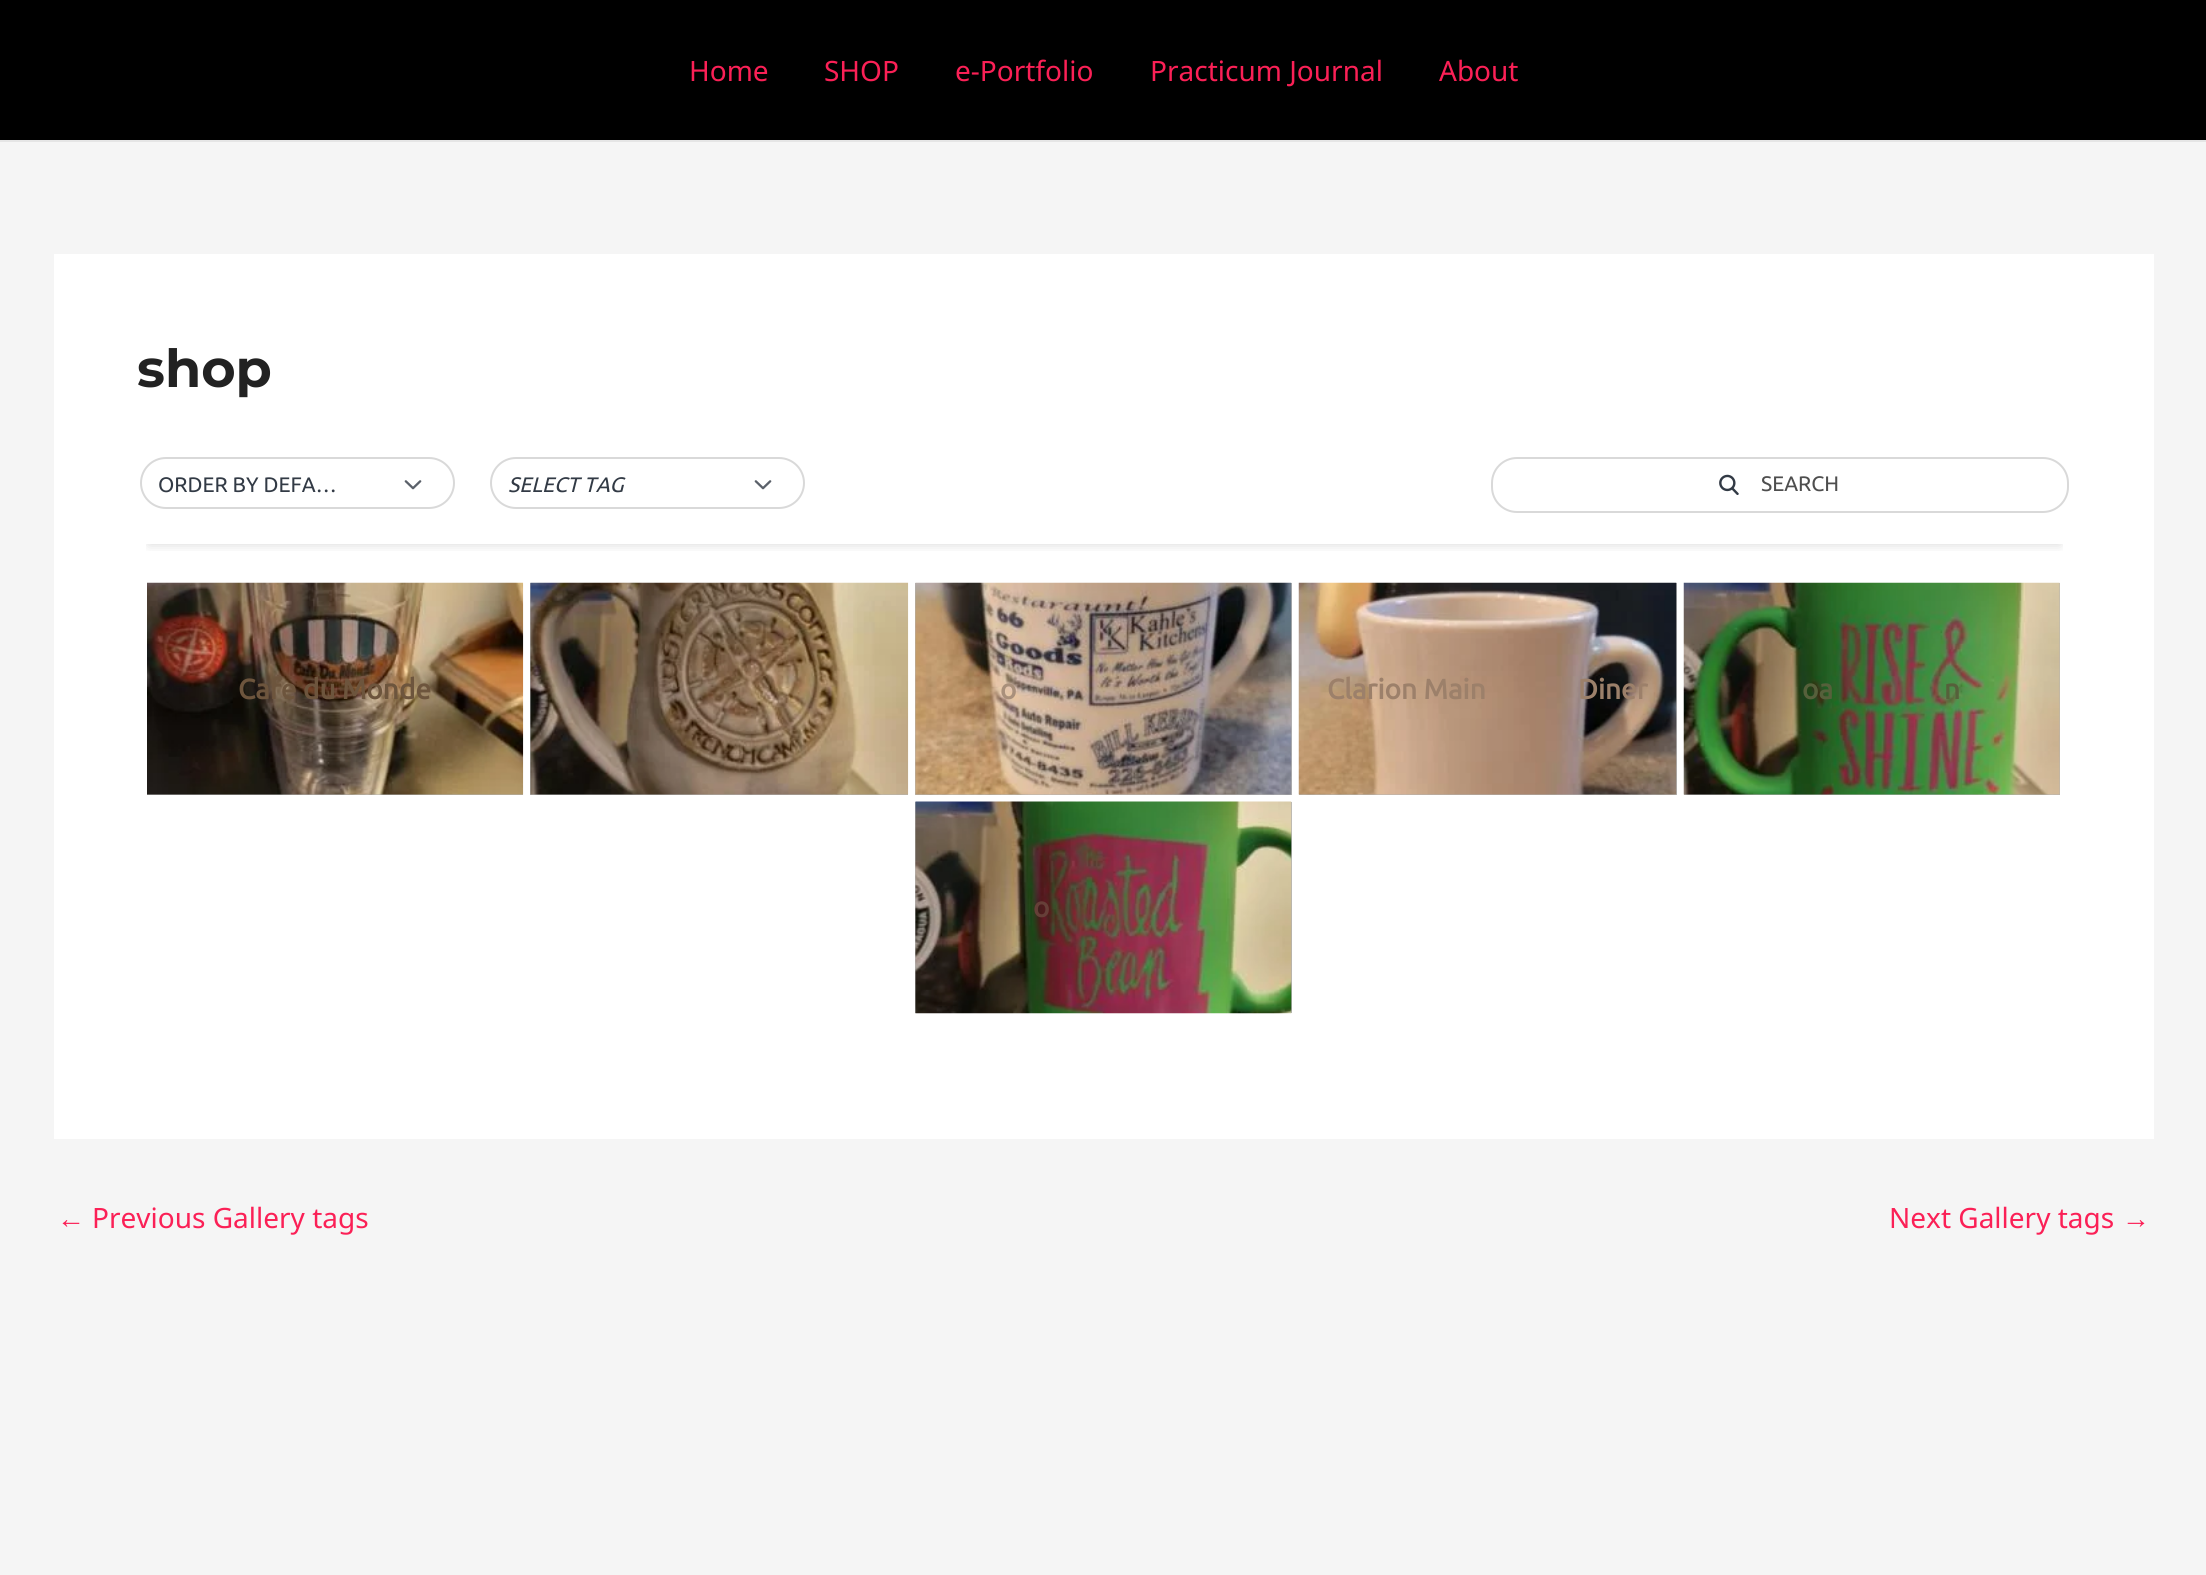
import math
import cairo

surface = cairo.ImageSurface(cairo.FORMAT_RGB24, 2206, 1575)
cr = cairo.Context(surface)
options = cairo.FontOptions()
options.set_hint_metrics(cairo.HINT_METRICS_OFF)
options.set_hint_style(cairo.HINT_STYLE_NONE)
cr.set_font_options(options)
cr.set_miter_limit(4)


def rgb(code):
    cr.set_source_rgb(*(v / 255 for v in bytes.fromhex(code[-6:])))


def rrect(x, y, w, h, r):
    cr.new_sub_path()
    for i, (u, v) in enumerate([(x + w - r, y + h - r), (x + r, y + h - r), (x + r, y + r), (x + w - r, y + r)]):
        cr.arc(u, v, r, i * math.pi / 2, (i + 1) * math.pi / 2)
    cr.close_path()


def soft_shadow(x, y, w, h, r, blur, alpha):
    cr.push_group_with_content(cairo.CONTENT_ALPHA)
    cr.set_operator(cairo.OPERATOR_SOURCE)
    for i in range(15, -16, -2):
        e = blur * i / 6
        if min(w, h) + 2 * e > 0:
            cr.set_source_rgba(0, 0, 0, alpha * math.erfc((i - 1) / 8.5) / 2)
            rrect(x - e, y - e, w + 2 * e, h + 2 * e, max(0, min(r + e + blur * .6, min(w, h) / 2 + e)))
            cr.fill()
    cr.mask(cr.pop_group())


def image(path, x, y, w, h):
    cr.save()
    cr.set_source_surface(cairo.ImageSurface.create_from_png(path), x, y)
    cr.rectangle(x, y, w, h)
    cr.fill()
    cr.restore()


rgb("#f5f5f5")
cr.paint()
for x, y, w, h, color in [
    (0, 0, 2206, 140, "#000000"),
    (0, 140, 2206, 2, "#e5e5e5"),
    (54, 254, 2100, 885, "#ffffff"),
]:
    rgb(color)
    cr.rectangle(x, y, w, h)
    cr.fill()
cr.save()
cr.rectangle(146, 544, 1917, 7)
cr.clip()
rgb("#000000")
soft_shadow(149, 474, 1911, 70, 0, 6, 0.16)
cr.restore()
rrect(141, 458, 313, 50, 25)
rgb("#d9d9d9")
cr.stroke()
image("img/1.png", 404, 480, 18, 10)
rrect(491, 458, 313, 50, 25)
cr.stroke()
image("img/1.png", 754, 480, 18, 10)
rrect(1492, 458, 576, 54, 25)
cr.stroke()
image("img/2.png", 1719, 474, 20, 21)
rgb("#b3b3b3")
cr.rectangle(147, 794, 376, 1)
cr.fill()
image("img/3.png", 147, 582, 377, 213)
cr.rectangle(530, 583, 378, 212)
cr.fill()
image("img/4.png", 530, 582, 379, 213)
cr.rectangle(915, 583, 377, 212)
cr.fill()
image("img/5.png", 915, 582, 377, 213)
cr.rectangle(1299, 583, 378, 212)
cr.fill()
image("img/6.png", 1298, 582, 379, 213)
cr.rectangle(1684, 583, 376, 212)
cr.fill()
image("img/7.png", 1683, 582, 377, 213)
cr.rectangle(915, 802, 377, 211)
cr.fill()
image("img/8.png", 915, 801, 377, 213)
cr.select_font_face("Noto Sans")
cr.set_font_size(28)
rgb("#fb2056")
for x, y, s in [
    (689, 81, "Home"),
    (824, 81, "SHOP"),
    (955, 81, "e-Portfolio"),
    (1150, 81, "Practicum Journal"),
    (1439, 81, "About"),
]:
    cr.move_to(x, y)
    cr.show_text(s)
cr.select_font_face("Montserrat Thin")
cr.set_font_size(52.5)
rgb("#222222")
cr.move_to(137, 387)
cr.show_text("shop")
cr.select_font_face("Ubuntu")
cr.set_font_size(21)
rgb("#323a45")
cr.move_to(158, 492)
cr.show_text("ORDER BY DEFA…")
cr.select_font_face("Ubuntu", cairo.FONT_SLANT_ITALIC)
cr.move_to(508, 492)
cr.show_text("SELECT TAG")
cr.select_font_face("Ubuntu")
rgb("#4e4e4e")
cr.move_to(1761, 491)
cr.show_text("SEARCH")
cr.select_font_face("Ubuntu", cairo.FONT_SLANT_NORMAL, cairo.FONT_WEIGHT_BOLD)
cr.set_font_size(28)
rgb("#6d553d")
cr.move_to(238, 699)
cr.show_text("Cafe du Monde")
rgb("#a9907b")
cr.move_to(1000, 699)
cr.show_text("o")
rgb("#9c806a")
cr.move_to(1327, 699)
cr.show_text("Clarion Main")
cr.move_to(1578, 699)
cr.show_text("Diner")
rgb("#56603b")
cr.move_to(1802, 699)
cr.show_text("oa")
cr.move_to(1944, 699)
cr.show_text("n")
rgb("#663f38")
cr.move_to(1033, 917)
cr.show_text("o")
cr.select_font_face("Liberation Sans")
rgb("#fb2056")
cr.move_to(57, 1228)
cr.show_text("←")
cr.select_font_face("Noto Sans")
cr.move_to(92, 1228)
cr.show_text("Previous Gallery tags")
cr.move_to(1889, 1228)
cr.show_text("Next Gallery tags")
cr.select_font_face("Liberation Sans")
cr.move_to(2122, 1228)
cr.show_text("→")
surface.write_to_png("page.png")
